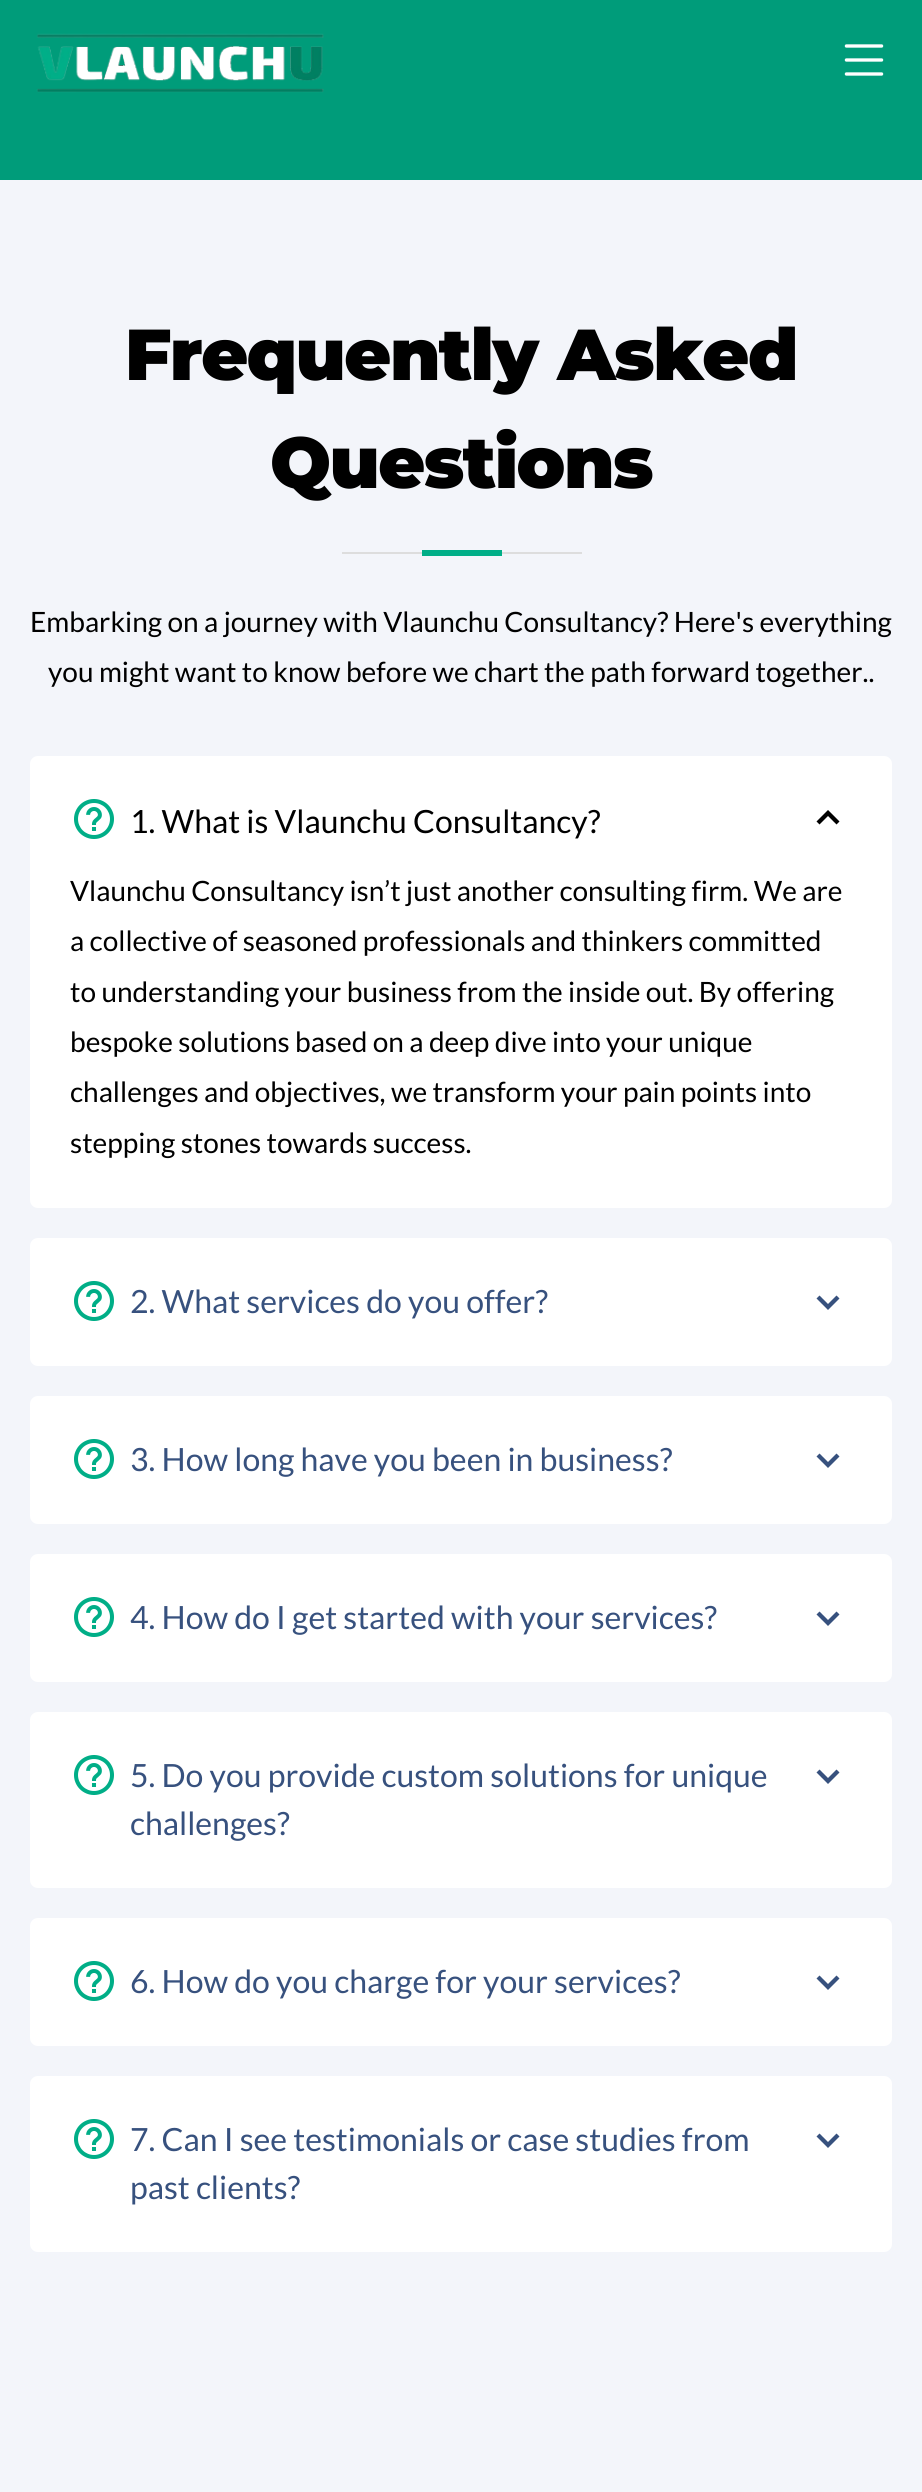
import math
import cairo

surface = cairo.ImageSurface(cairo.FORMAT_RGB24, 922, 2492)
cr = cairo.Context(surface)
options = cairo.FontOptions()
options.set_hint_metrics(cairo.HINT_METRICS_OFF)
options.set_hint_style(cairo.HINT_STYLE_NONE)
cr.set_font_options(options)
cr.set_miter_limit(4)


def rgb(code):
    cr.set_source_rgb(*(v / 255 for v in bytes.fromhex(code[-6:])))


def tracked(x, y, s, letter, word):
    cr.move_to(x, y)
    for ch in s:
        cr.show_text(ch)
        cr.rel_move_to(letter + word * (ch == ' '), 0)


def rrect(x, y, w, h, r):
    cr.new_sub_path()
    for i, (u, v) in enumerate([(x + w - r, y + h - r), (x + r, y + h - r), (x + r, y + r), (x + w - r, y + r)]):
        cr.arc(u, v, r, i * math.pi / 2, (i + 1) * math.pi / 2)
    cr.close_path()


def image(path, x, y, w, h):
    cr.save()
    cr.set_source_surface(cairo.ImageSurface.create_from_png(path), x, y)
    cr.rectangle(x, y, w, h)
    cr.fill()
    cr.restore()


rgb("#009c7a")
cr.paint()
image("img/1.png", 36, 33, 288, 60)
image("img/2.png", 844, 44, 40, 32)
for x, y, w, h, color in [
    (0, 180, 922, 2312, "#f3f5fa"),
    (342, 552, 240, 2, "#dddddd"),
    (422, 550, 80, 6, "#00ae87"),
]:
    rgb(color)
    cr.rectangle(x, y, w, h)
    cr.fill()
rgb("#ffffff")
rrect(30, 756, 862, 452, 8)
cr.fill()
image("img/3.png", 74, 799, 40, 40)
rgb("#000000")
cr.new_path()
cr.move_to(816.5, 821.5)
cr.line_to(819.5, 824.5)
cr.line_to(828, 816)
cr.line_to(836.5, 824.5)
cr.line_to(839.5, 821.5)
cr.line_to(828, 810)
cr.close_path()
cr.fill()
rgb("#ffffff")
rrect(30, 1238, 862, 128, 8)
cr.fill()
image("img/3.png", 74, 1281, 40, 40)
rgb("#37517e")
cr.new_path()
cr.move_to(836.5, 1295.5)
cr.line_to(828, 1304)
cr.line_to(819.5, 1295.5)
cr.line_to(816.5, 1298.5)
cr.line_to(828, 1310)
cr.line_to(839.5, 1298.5)
cr.close_path()
cr.fill()
rgb("#ffffff")
rrect(30, 1396, 862, 128, 8)
cr.fill()
image("img/3.png", 74, 1439, 40, 40)
rgb("#37517e")
cr.new_path()
cr.move_to(836.5, 1453.5)
cr.line_to(828, 1462)
cr.line_to(819.5, 1453.5)
cr.line_to(816.5, 1456.5)
cr.line_to(828, 1468)
cr.line_to(839.5, 1456.5)
cr.close_path()
cr.fill()
rgb("#ffffff")
rrect(30, 1554, 862, 128, 8)
cr.fill()
image("img/3.png", 74, 1597, 40, 40)
rgb("#37517e")
cr.new_path()
cr.move_to(836.5, 1611.5)
cr.line_to(828, 1620)
cr.line_to(819.5, 1611.5)
cr.line_to(816.5, 1614.5)
cr.line_to(828, 1626)
cr.line_to(839.5, 1614.5)
cr.close_path()
cr.fill()
rgb("#ffffff")
rrect(30, 1712, 862, 176, 8)
cr.fill()
image("img/3.png", 74, 1755, 40, 40)
rgb("#37517e")
cr.new_path()
cr.move_to(836.5, 1769.5)
cr.line_to(828, 1778)
cr.line_to(819.5, 1769.5)
cr.line_to(816.5, 1772.5)
cr.line_to(828, 1784)
cr.line_to(839.5, 1772.5)
cr.close_path()
cr.fill()
rgb("#ffffff")
rrect(30, 1918, 862, 128, 8)
cr.fill()
image("img/3.png", 74, 1961, 40, 40)
rgb("#37517e")
cr.new_path()
cr.move_to(836.5, 1975.5)
cr.line_to(828, 1984)
cr.line_to(819.5, 1975.5)
cr.line_to(816.5, 1978.5)
cr.line_to(828, 1990)
cr.line_to(839.5, 1978.5)
cr.close_path()
cr.fill()
rgb("#ffffff")
rrect(30, 2076, 862, 176, 8)
cr.fill()
image("img/3.png", 74, 2119, 40, 40)
rgb("#37517e")
cr.new_path()
cr.move_to(836.5, 2133.5)
cr.line_to(828, 2142)
cr.line_to(819.5, 2133.5)
cr.line_to(816.5, 2136.5)
cr.line_to(828, 2148)
cr.line_to(839.5, 2136.5)
cr.close_path()
cr.fill()
cr.select_font_face("Montserrat Black")
cr.set_font_size(72)
rgb("#000000")
tracked(125, 380, "Frequently Asked", -1.5, 0)
tracked(270, 488, "Questions", -1.5, 0)
cr.select_font_face("Lato")
cr.set_font_size(28)
cr.move_to(30, 632)
cr.show_text("Embarking on a journey with Vlaunchu Consultancy? Here's everything")
cr.move_to(48, 682)
cr.show_text("you might want to know before we chart the path forward together..")
cr.set_font_size(32)
cr.move_to(130, 833)
cr.show_text("1. What is Vlaunchu Consultancy?")
cr.set_font_size(28)
for x, y, s in [
    (70, 901, "Vlaunchu Consultancy isn’t just another consulting firm. We are"),
    (70, 951, "a collective of seasoned professionals and thinkers committed"),
    (70, 1002, "to understanding your business from the inside out. By offering"),
    (70, 1052, "bespoke solutions based on a deep dive into your unique"),
    (70, 1102, "challenges and objectives, we transform your pain points into"),
    (70, 1153, "stepping stones towards success."),
]:
    cr.move_to(x, y)
    cr.show_text(s)
cr.set_font_size(32)
rgb("#37517e")
for x, y, s in [
    (130, 1313, "2. What services do you offer?"),
    (130, 1471, "3. How long have you been in business?"),
    (130, 1629, "4. How do I get started with your services?"),
    (130, 1787, "5. Do you provide custom solutions for unique"),
    (130, 1835, "challenges?"),
    (130, 1993, "6. How do you charge for your services?"),
    (130, 2151, "7. Can I see testimonials or case studies from"),
    (130, 2199, "past clients?"),
]:
    cr.move_to(x, y)
    cr.show_text(s)
surface.write_to_png("page.png")
